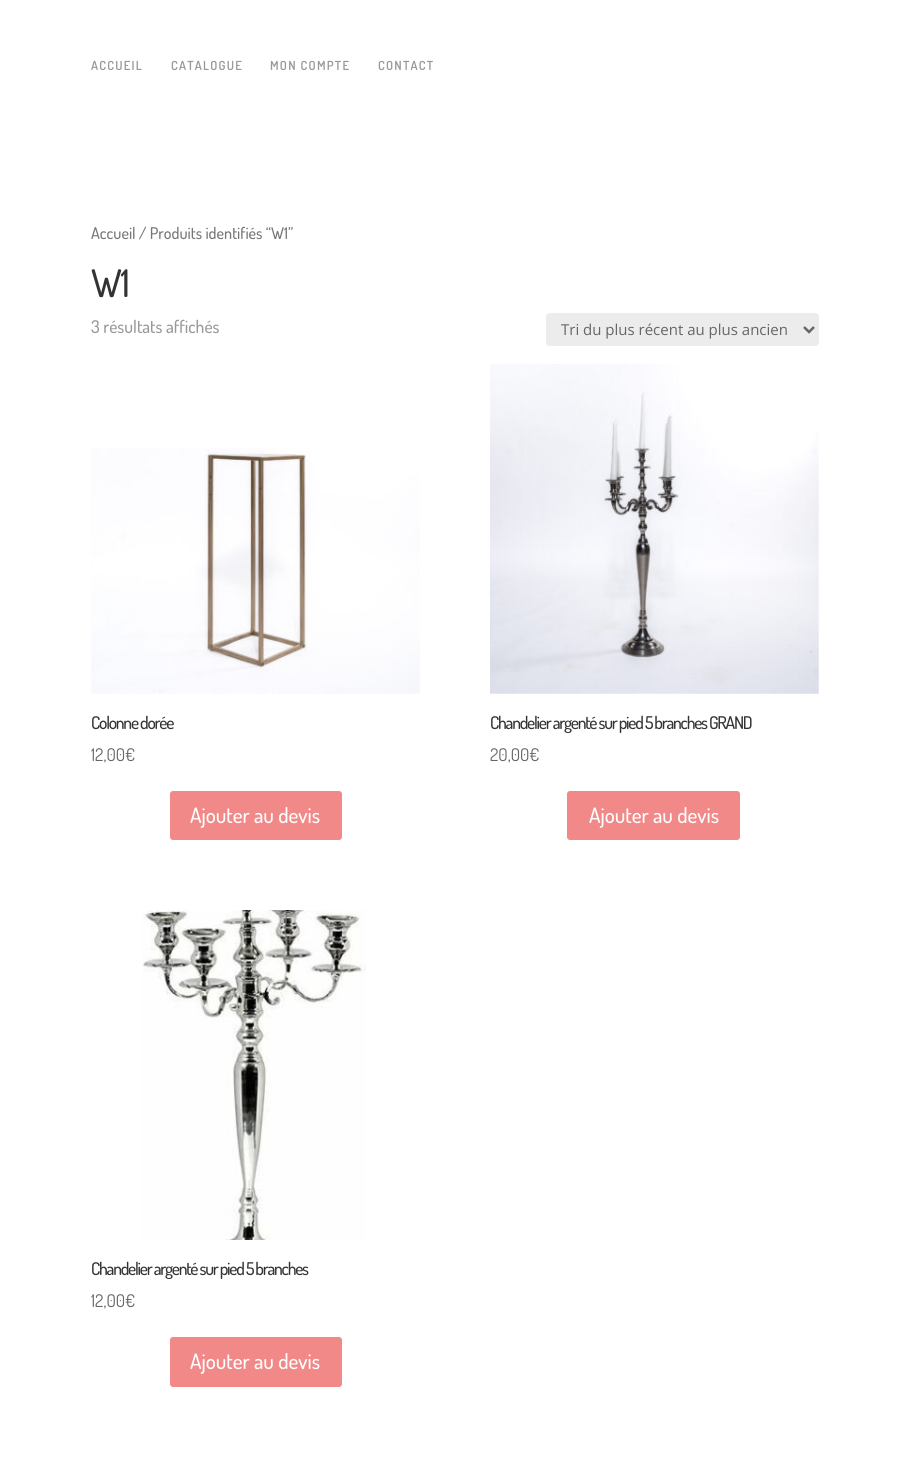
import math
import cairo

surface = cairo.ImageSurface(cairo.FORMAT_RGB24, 909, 1479)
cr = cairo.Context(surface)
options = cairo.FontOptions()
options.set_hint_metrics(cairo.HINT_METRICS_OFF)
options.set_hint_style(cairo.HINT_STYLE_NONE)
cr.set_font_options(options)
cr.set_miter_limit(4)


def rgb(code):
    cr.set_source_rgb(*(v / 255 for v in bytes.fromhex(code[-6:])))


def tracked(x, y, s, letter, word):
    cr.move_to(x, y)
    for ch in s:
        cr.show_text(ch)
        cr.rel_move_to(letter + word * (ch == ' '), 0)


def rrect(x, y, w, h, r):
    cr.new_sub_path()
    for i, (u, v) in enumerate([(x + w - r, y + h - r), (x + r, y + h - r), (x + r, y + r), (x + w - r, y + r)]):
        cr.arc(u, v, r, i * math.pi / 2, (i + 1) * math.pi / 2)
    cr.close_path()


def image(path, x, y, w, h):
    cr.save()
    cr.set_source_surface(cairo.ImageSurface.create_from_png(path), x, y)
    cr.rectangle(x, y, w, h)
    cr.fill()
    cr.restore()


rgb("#ffffff")
cr.paint()
rgb("#ececec")
rrect(546, 313, 273, 33, 4)
cr.fill()
cr.new_path()
cr.move_to(804, 327)
cr.line_to(809, 332)
cr.line_to(814, 327)
rgb("#666666")
cr.set_line_width(2.5)
cr.stroke()
image("img/1.png", 91, 448, 329, 246)
rgb("#f18989")
rrect(169.5, 790.5, 173, 50, 3.5)
cr.fill_preserve()
rgb("#ffffff")
cr.set_line_width(1)
cr.stroke()
image("img/2.png", 490, 364, 329, 330)
rgb("#f18989")
rrect(566.5, 790.5, 174, 50, 3.5)
cr.fill_preserve()
rgb("#ffffff")
cr.stroke()
image("img/3.png", 142, 910, 224, 330)
rgb("#f18989")
rrect(169.5, 1336.5, 173, 51, 3.5)
cr.fill_preserve()
rgb("#ffffff")
cr.stroke()
cr.select_font_face("Dosis SemiBold")
cr.set_font_size(12.5)
rgb("#999999")
for x, y, s in [
    (91, 70, "ACCUEIL"),
    (171, 70, "CATALOGUE"),
    (270, 70, "MON COMPTE"),
    (378, 70, "CONTACT"),
]:
    tracked(x, y, s, 1.25, 0)
cr.select_font_face("Dosis Medium")
cr.set_font_size(16.1)
rgb("#767676")
cr.move_to(91, 239)
cr.show_text("Accueil / Produits identifiés “W1”")
cr.set_font_size(38)
rgb("#333333")
tracked(91, 297, "W1", -1.25, 0)
cr.set_font_size(17.5)
rgb("#999999")
cr.move_to(91, 333)
cr.show_text("3 résultats affichés")
cr.select_font_face("Open Sans")
cr.set_font_size(15)
rgb("#666666")
cr.move_to(561, 335)
cr.show_text("Tri du plus récent au plus ancien")
cr.select_font_face("Dosis Medium")
cr.set_font_size(17.5)
rgb("#333333")
tracked(91, 729, "Colonne dorée", -1.25, 0)
cr.select_font_face("Dosis")
rgb("#666666")
cr.move_to(91, 761)
cr.show_text("12,00€")
cr.select_font_face("Dosis Medium")
cr.set_font_size(21)
rgb("#ffffff")
cr.move_to(190, 823)
cr.show_text("Ajouter au devis")
cr.set_font_size(17.5)
rgb("#333333")
tracked(490, 729, "Chandelier argenté sur pied 5 branches GRAND", -1.25, 0)
cr.select_font_face("Dosis")
rgb("#666666")
cr.move_to(490, 761)
cr.show_text("20,00€")
cr.select_font_face("Dosis Medium")
cr.set_font_size(21)
rgb("#ffffff")
cr.move_to(589, 823)
cr.show_text("Ajouter au devis")
cr.set_font_size(17.5)
rgb("#333333")
tracked(91, 1275, "Chandelier argenté sur pied 5 branches", -1.25, 0)
cr.select_font_face("Dosis")
rgb("#666666")
cr.move_to(91, 1307)
cr.show_text("12,00€")
cr.select_font_face("Dosis Medium")
cr.set_font_size(21)
rgb("#ffffff")
cr.move_to(190, 1369)
cr.show_text("Ajouter au devis")
surface.write_to_png("page.png")
